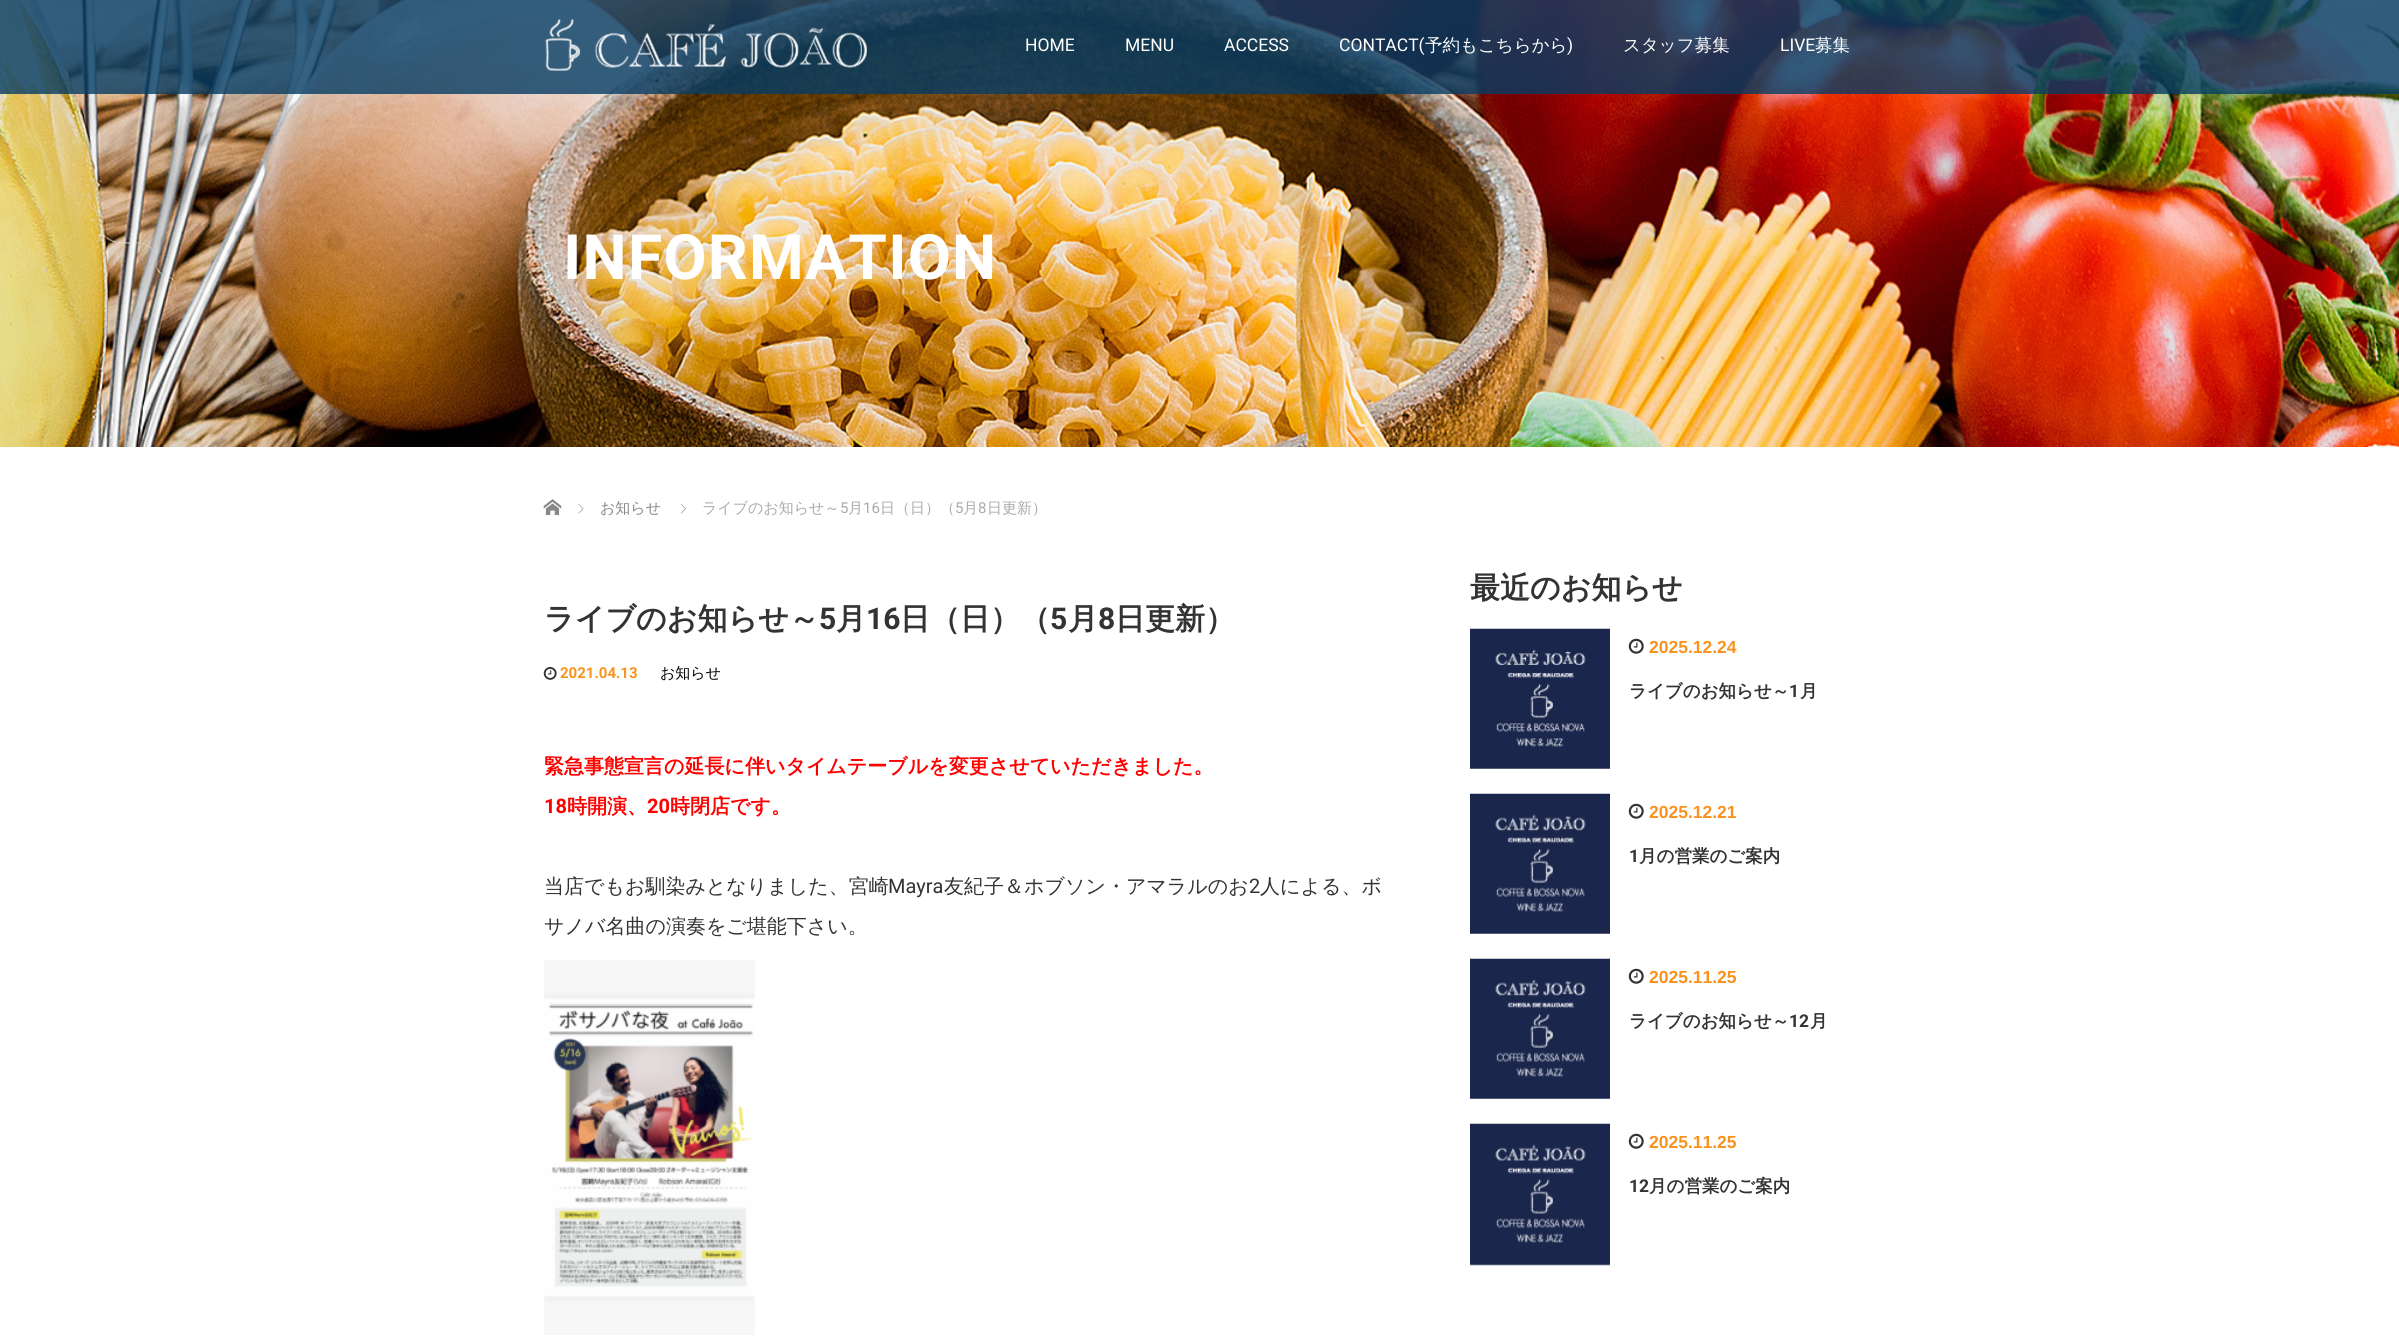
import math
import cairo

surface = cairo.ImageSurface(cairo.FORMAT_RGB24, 2399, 1338)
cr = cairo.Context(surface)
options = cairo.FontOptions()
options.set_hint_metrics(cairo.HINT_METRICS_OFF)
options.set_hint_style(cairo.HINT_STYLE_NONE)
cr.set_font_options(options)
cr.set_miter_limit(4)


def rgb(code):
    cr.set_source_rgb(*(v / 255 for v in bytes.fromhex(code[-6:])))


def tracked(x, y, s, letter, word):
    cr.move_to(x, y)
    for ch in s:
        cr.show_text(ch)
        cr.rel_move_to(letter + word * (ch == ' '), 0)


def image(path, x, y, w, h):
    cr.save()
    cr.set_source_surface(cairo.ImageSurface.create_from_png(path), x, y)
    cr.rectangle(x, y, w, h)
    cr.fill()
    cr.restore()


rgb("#ffffff")
cr.paint()
image("img/1.png", 0, 0, 2399, 447)
cr.set_source_rgba(0.024, 0.235, 0.392, 0.8)
cr.rectangle(0, 0, 2399, 94)
cr.fill()
image("img/2.png", 545, 19, 322, 52)
image("img/3.png", 543, 499, 19, 16)
image("img/4.png", 578, 503, 6, 11)
image("img/5.png", 680, 504, 6, 10)
image("img/6.png", 543, 667, 14, 13)
image("img/7.png", 544, 960, 211, 375)
image("img/8.png", 1470, 628, 140, 141)
image("img/9.png", 1628, 638, 16, 16)
image("img/10.png", 1470, 793, 140, 141)
image("img/9.png", 1628, 803, 16, 16)
image("img/11.png", 1470, 958, 140, 141)
image("img/9.png", 1628, 968, 16, 16)
image("img/12.png", 1470, 1123, 140, 143)
image("img/9.png", 1628, 1133, 16, 16)
cr.select_font_face("Roboto")
cr.set_font_size(17.5)
rgb("#ffffff")
for x, y, s in [
    (1025, 51, "HOME"),
    (1125, 51, "MENU"),
    (1224, 51, "ACCESS"),
    (1339, 51, "CONTACT("),
]:
    cr.move_to(x, y)
    cr.show_text(s)
cr.select_font_face("WenQuanYi Zen Hei Medium")
cr.move_to(1425, 51)
cr.show_text("予約もこちらから")
cr.select_font_face("Roboto")
cr.move_to(1567, 51)
cr.show_text(")")
cr.select_font_face("WenQuanYi Zen Hei Medium")
cr.move_to(1623, 51)
cr.show_text("スタッフ募集")
cr.select_font_face("Roboto")
cr.move_to(1780, 51)
cr.show_text("LIVE")
cr.select_font_face("WenQuanYi Zen Hei Medium")
cr.move_to(1815, 51)
cr.show_text("募集")
cr.select_font_face("Roboto", cairo.FONT_SLANT_NORMAL, cairo.FONT_WEIGHT_BOLD)
cr.set_font_size(62.5)
tracked(563, 279, "INFORMATION", 1.25, 0)
cr.select_font_face("WenQuanYi Zen Hei Medium")
cr.set_font_size(15)
rgb("#888888")
cr.move_to(600, 513)
cr.show_text("お知らせ")
rgb("#aaaaaa")
cr.move_to(702, 513)
cr.show_text("ライブのお知らせ～")
cr.select_font_face("Roboto")
cr.move_to(840, 513)
cr.show_text("5")
cr.select_font_face("WenQuanYi Zen Hei Medium")
cr.move_to(848, 513)
cr.show_text("月")
cr.select_font_face("Roboto")
cr.move_to(863, 513)
cr.show_text("16")
cr.select_font_face("WenQuanYi Zen Hei Medium")
cr.move_to(880, 513)
cr.show_text("日（日）（")
cr.select_font_face("Roboto")
cr.move_to(955, 513)
cr.show_text("5")
cr.select_font_face("WenQuanYi Zen Hei Medium")
cr.move_to(963, 513)
cr.show_text("月")
cr.select_font_face("Roboto")
cr.move_to(978, 513)
cr.show_text("8")
cr.select_font_face("WenQuanYi Zen Hei Medium")
cr.move_to(987, 513)
cr.show_text("日更新）")
cr.select_font_face("WenQuanYi Zen Hei", cairo.FONT_SLANT_NORMAL, cairo.FONT_WEIGHT_BOLD)
cr.set_font_size(30)
rgb("#333333")
cr.move_to(544, 629)
cr.show_text("ライブのお知らせ～")
cr.select_font_face("Roboto", cairo.FONT_SLANT_NORMAL, cairo.FONT_WEIGHT_BOLD)
cr.move_to(819, 629)
cr.show_text("5")
cr.select_font_face("WenQuanYi Zen Hei", cairo.FONT_SLANT_NORMAL, cairo.FONT_WEIGHT_BOLD)
cr.move_to(836, 629)
cr.show_text("月")
cr.select_font_face("Roboto", cairo.FONT_SLANT_NORMAL, cairo.FONT_WEIGHT_BOLD)
cr.move_to(866, 629)
cr.show_text("16")
cr.select_font_face("WenQuanYi Zen Hei", cairo.FONT_SLANT_NORMAL, cairo.FONT_WEIGHT_BOLD)
cr.move_to(900, 629)
cr.show_text("日（日）（")
cr.select_font_face("Roboto", cairo.FONT_SLANT_NORMAL, cairo.FONT_WEIGHT_BOLD)
cr.move_to(1050, 629)
cr.show_text("5")
cr.select_font_face("WenQuanYi Zen Hei", cairo.FONT_SLANT_NORMAL, cairo.FONT_WEIGHT_BOLD)
cr.move_to(1068, 629)
cr.show_text("月")
cr.select_font_face("Roboto", cairo.FONT_SLANT_NORMAL, cairo.FONT_WEIGHT_BOLD)
cr.move_to(1098, 629)
cr.show_text("8")
cr.select_font_face("WenQuanYi Zen Hei", cairo.FONT_SLANT_NORMAL, cairo.FONT_WEIGHT_BOLD)
cr.move_to(1115, 629)
cr.show_text("日更新）")
cr.select_font_face("Roboto", cairo.FONT_SLANT_NORMAL, cairo.FONT_WEIGHT_BOLD)
cr.set_font_size(15)
rgb("#fa931e")
cr.move_to(560, 678)
cr.show_text("2021.04.13")
cr.select_font_face("WenQuanYi Zen Hei Medium")
rgb("#000000")
cr.move_to(660, 678)
cr.show_text("お知らせ")
cr.select_font_face("WenQuanYi Zen Hei", cairo.FONT_SLANT_NORMAL, cairo.FONT_WEIGHT_BOLD)
cr.set_font_size(20)
rgb("#ff0000")
cr.move_to(544, 773)
cr.show_text("緊急事態宣言の延長に伴いタイムテーブルを変更させていただきました。")
cr.select_font_face("Roboto", cairo.FONT_SLANT_NORMAL, cairo.FONT_WEIGHT_BOLD)
cr.move_to(544, 813)
cr.show_text("18")
cr.select_font_face("WenQuanYi Zen Hei", cairo.FONT_SLANT_NORMAL, cairo.FONT_WEIGHT_BOLD)
cr.move_to(567, 813)
cr.show_text("時開演、")
cr.select_font_face("Roboto", cairo.FONT_SLANT_NORMAL, cairo.FONT_WEIGHT_BOLD)
cr.move_to(647, 813)
cr.show_text("20")
cr.select_font_face("WenQuanYi Zen Hei", cairo.FONT_SLANT_NORMAL, cairo.FONT_WEIGHT_BOLD)
cr.move_to(670, 813)
cr.show_text("時閉店です。")
cr.select_font_face("WenQuanYi Zen Hei Medium")
rgb("#333333")
cr.move_to(544, 893)
cr.show_text("当店でもお馴染みとなりました、宮崎")
cr.select_font_face("Roboto")
cr.move_to(888, 893)
cr.show_text("Mayra")
cr.select_font_face("WenQuanYi Zen Hei Medium")
cr.move_to(944, 893)
cr.show_text("友紀子＆ホブソン・アマラルのお")
cr.select_font_face("Roboto")
cr.move_to(1249, 893)
cr.show_text("2")
cr.select_font_face("WenQuanYi Zen Hei Medium")
cr.move_to(1260, 893)
cr.show_text("人による、ボ")
cr.move_to(544, 933)
cr.show_text("サノバ名曲の演奏をご堪能下さい。")
cr.select_font_face("WenQuanYi Zen Hei", cairo.FONT_SLANT_NORMAL, cairo.FONT_WEIGHT_BOLD)
cr.set_font_size(30)
cr.move_to(1470, 598)
cr.show_text("最近のお知らせ")
cr.select_font_face("Liberation Sans", cairo.FONT_SLANT_NORMAL, cairo.FONT_WEIGHT_BOLD)
cr.set_font_size(17.5)
rgb("#fa931e")
cr.move_to(1649, 653)
cr.show_text("2025.12.24")
cr.select_font_face("WenQuanYi Zen Hei", cairo.FONT_SLANT_NORMAL, cairo.FONT_WEIGHT_BOLD)
rgb("#333333")
cr.move_to(1629, 697)
cr.show_text("ライブのお知らせ～")
cr.select_font_face("Roboto", cairo.FONT_SLANT_NORMAL, cairo.FONT_WEIGHT_BOLD)
cr.move_to(1789, 697)
cr.show_text("1")
cr.select_font_face("WenQuanYi Zen Hei", cairo.FONT_SLANT_NORMAL, cairo.FONT_WEIGHT_BOLD)
cr.move_to(1800, 697)
cr.show_text("月")
cr.select_font_face("Liberation Sans", cairo.FONT_SLANT_NORMAL, cairo.FONT_WEIGHT_BOLD)
rgb("#fa931e")
cr.move_to(1649, 818)
cr.show_text("2025.12.21")
cr.select_font_face("Roboto", cairo.FONT_SLANT_NORMAL, cairo.FONT_WEIGHT_BOLD)
rgb("#333333")
cr.move_to(1629, 862)
cr.show_text("1")
cr.select_font_face("WenQuanYi Zen Hei", cairo.FONT_SLANT_NORMAL, cairo.FONT_WEIGHT_BOLD)
cr.move_to(1639, 862)
cr.show_text("月の営業のご案内")
cr.select_font_face("Liberation Sans", cairo.FONT_SLANT_NORMAL, cairo.FONT_WEIGHT_BOLD)
rgb("#fa931e")
cr.move_to(1649, 983)
cr.show_text("2025.11.25")
cr.select_font_face("WenQuanYi Zen Hei", cairo.FONT_SLANT_NORMAL, cairo.FONT_WEIGHT_BOLD)
rgb("#333333")
cr.move_to(1629, 1027)
cr.show_text("ライブのお知らせ～")
cr.select_font_face("Roboto", cairo.FONT_SLANT_NORMAL, cairo.FONT_WEIGHT_BOLD)
cr.move_to(1789, 1027)
cr.show_text("12")
cr.select_font_face("WenQuanYi Zen Hei", cairo.FONT_SLANT_NORMAL, cairo.FONT_WEIGHT_BOLD)
cr.move_to(1810, 1027)
cr.show_text("月")
cr.select_font_face("Liberation Sans", cairo.FONT_SLANT_NORMAL, cairo.FONT_WEIGHT_BOLD)
rgb("#fa931e")
cr.move_to(1649, 1148)
cr.show_text("2025.11.25")
cr.select_font_face("Roboto", cairo.FONT_SLANT_NORMAL, cairo.FONT_WEIGHT_BOLD)
rgb("#333333")
cr.move_to(1629, 1192)
cr.show_text("12")
cr.select_font_face("WenQuanYi Zen Hei", cairo.FONT_SLANT_NORMAL, cairo.FONT_WEIGHT_BOLD)
cr.move_to(1649, 1192)
cr.show_text("月の営業のご案内")
surface.write_to_png("page.png")
